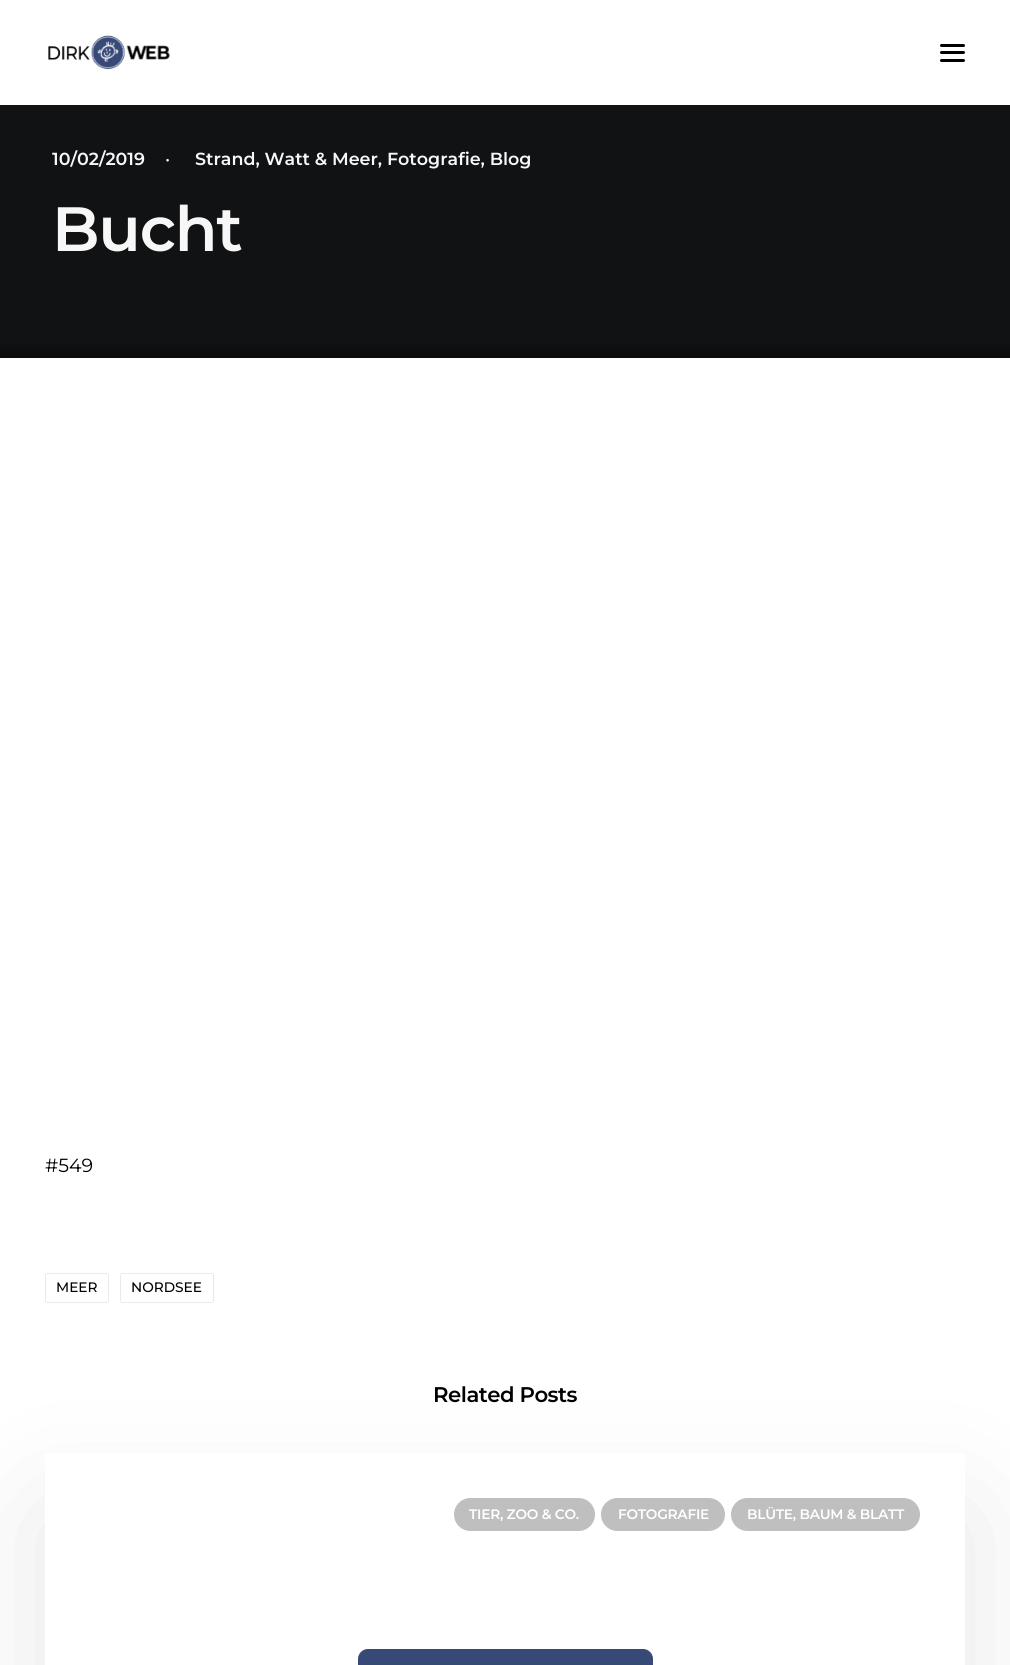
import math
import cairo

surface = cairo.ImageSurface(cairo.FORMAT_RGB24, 1010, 1665)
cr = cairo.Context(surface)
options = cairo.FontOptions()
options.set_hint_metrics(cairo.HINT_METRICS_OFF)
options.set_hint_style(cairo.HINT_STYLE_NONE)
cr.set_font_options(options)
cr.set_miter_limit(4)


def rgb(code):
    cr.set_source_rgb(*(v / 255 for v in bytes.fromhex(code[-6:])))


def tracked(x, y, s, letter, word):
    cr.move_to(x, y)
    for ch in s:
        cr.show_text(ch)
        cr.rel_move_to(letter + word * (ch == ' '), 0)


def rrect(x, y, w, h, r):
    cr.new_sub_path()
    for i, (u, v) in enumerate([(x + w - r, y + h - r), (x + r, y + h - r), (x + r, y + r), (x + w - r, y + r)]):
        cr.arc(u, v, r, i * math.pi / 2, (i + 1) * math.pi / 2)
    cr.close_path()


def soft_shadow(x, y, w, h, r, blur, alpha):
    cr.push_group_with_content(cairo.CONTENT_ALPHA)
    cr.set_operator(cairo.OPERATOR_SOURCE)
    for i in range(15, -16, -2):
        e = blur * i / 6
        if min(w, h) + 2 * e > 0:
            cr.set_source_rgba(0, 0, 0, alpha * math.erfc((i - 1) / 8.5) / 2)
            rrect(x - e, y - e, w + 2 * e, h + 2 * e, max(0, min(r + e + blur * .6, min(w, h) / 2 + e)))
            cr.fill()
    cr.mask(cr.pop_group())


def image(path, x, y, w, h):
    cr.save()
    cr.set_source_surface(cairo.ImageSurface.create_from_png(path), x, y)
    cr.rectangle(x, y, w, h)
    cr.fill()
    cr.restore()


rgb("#101213")
cr.paint()
rgb("#ffffff")
cr.rectangle(0, 0, 1010, 105)
cr.fill()
image("img/1.png", 48, 35, 122, 35)
rgb("#000000")
rrect(940, 51, 25, 3, 1.5)
cr.fill()
rrect(940, 44, 25, 3, 1.5)
cr.fill()
rrect(940, 59, 25, 3, 1.5)
cr.fill()
gradient = cairo.LinearGradient(505, 334, 505, 359)
gradient.add_color_stop_rgba(0, 0.063, 0.071, 0.075, 1)
gradient.add_color_stop_rgba(1, 0.043, 0.051, 0.051, 1)
cr.set_source(gradient)
cr.rectangle(0, 344, 1010, 14)
cr.fill()
rgb("#ffffff")
cr.rectangle(0, 358, 1010, 1307)
cr.fill()
rrect(45.5, 1273.5, 63, 29, 2)
rgb("#eaeaea")
cr.set_line_width(1)
cr.stroke()
rrect(120.5, 1273.5, 93, 29, 2)
cr.stroke()
rgb("#374977")
rrect(358.5, 1649.5, 294, 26, 9.5)
cr.fill_preserve()
cr.stroke()
cr.save()
cr.set_fill_rule(cairo.FILL_RULE_EVEN_ODD)
cr.new_path()
cr.move_to(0, 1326)
cr.line_to(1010, 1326)
cr.line_to(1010, 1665)
cr.line_to(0, 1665)
cr.close_path()
cr.move_to(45, 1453)
cr.line_to(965, 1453)
cr.line_to(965, 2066)
cr.line_to(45, 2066)
cr.close_path()
cr.clip()
rgb("#000000")
soft_shadow(45, 1515, 920, 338, 0, 62.5, 0.1)
cr.restore()
rgb("#bfbfbf")
rrect(454, 1498, 141, 33, 16.5)
cr.fill()
rrect(601, 1498, 124, 33, 16.5)
cr.fill()
rrect(731, 1498, 189, 33, 16.5)
cr.fill()
cr.select_font_face("Montserrat Thin")
cr.set_font_size(17.5)
rgb("#f7f7f7")
cr.move_to(52, 165)
cr.show_text("10/02/2019")
cr.select_font_face("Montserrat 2 Thin")
cr.move_to(165, 165)
cr.show_text("•")
cr.select_font_face("Montserrat Thin")
cr.move_to(195, 165)
cr.show_text("Strand, Watt & Meer, Fotografie, Blog")
cr.set_font_size(62.5)
tracked(52, 251, "Bucht", -1.25, 0)
cr.select_font_face("Montserrat 2 Thin")
cr.set_font_size(19)
rgb("#000000")
cr.move_to(45, 1172)
cr.show_text("#549")
cr.select_font_face("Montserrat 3 Thin")
cr.set_font_size(13.75)
cr.move_to(56, 1292)
cr.show_text("MEER")
cr.move_to(131, 1292)
cr.show_text("NORDSEE")
cr.select_font_face("Montserrat Thin")
cr.set_font_size(21.25)
tracked(433, 1402, "Related Posts", -0.5, 0)
cr.set_font_size(13.75)
rgb("#ffffff")
for x, y, s in [
    (469, 1519, "TIER, ZOO & CO."),
    (618, 1519, "FOTOGRAFIE"),
    (747, 1519, "BLÜTE, BAUM & BLATT"),
]:
    tracked(x, y, s, -0.25, 0)
surface.write_to_png("page.png")
